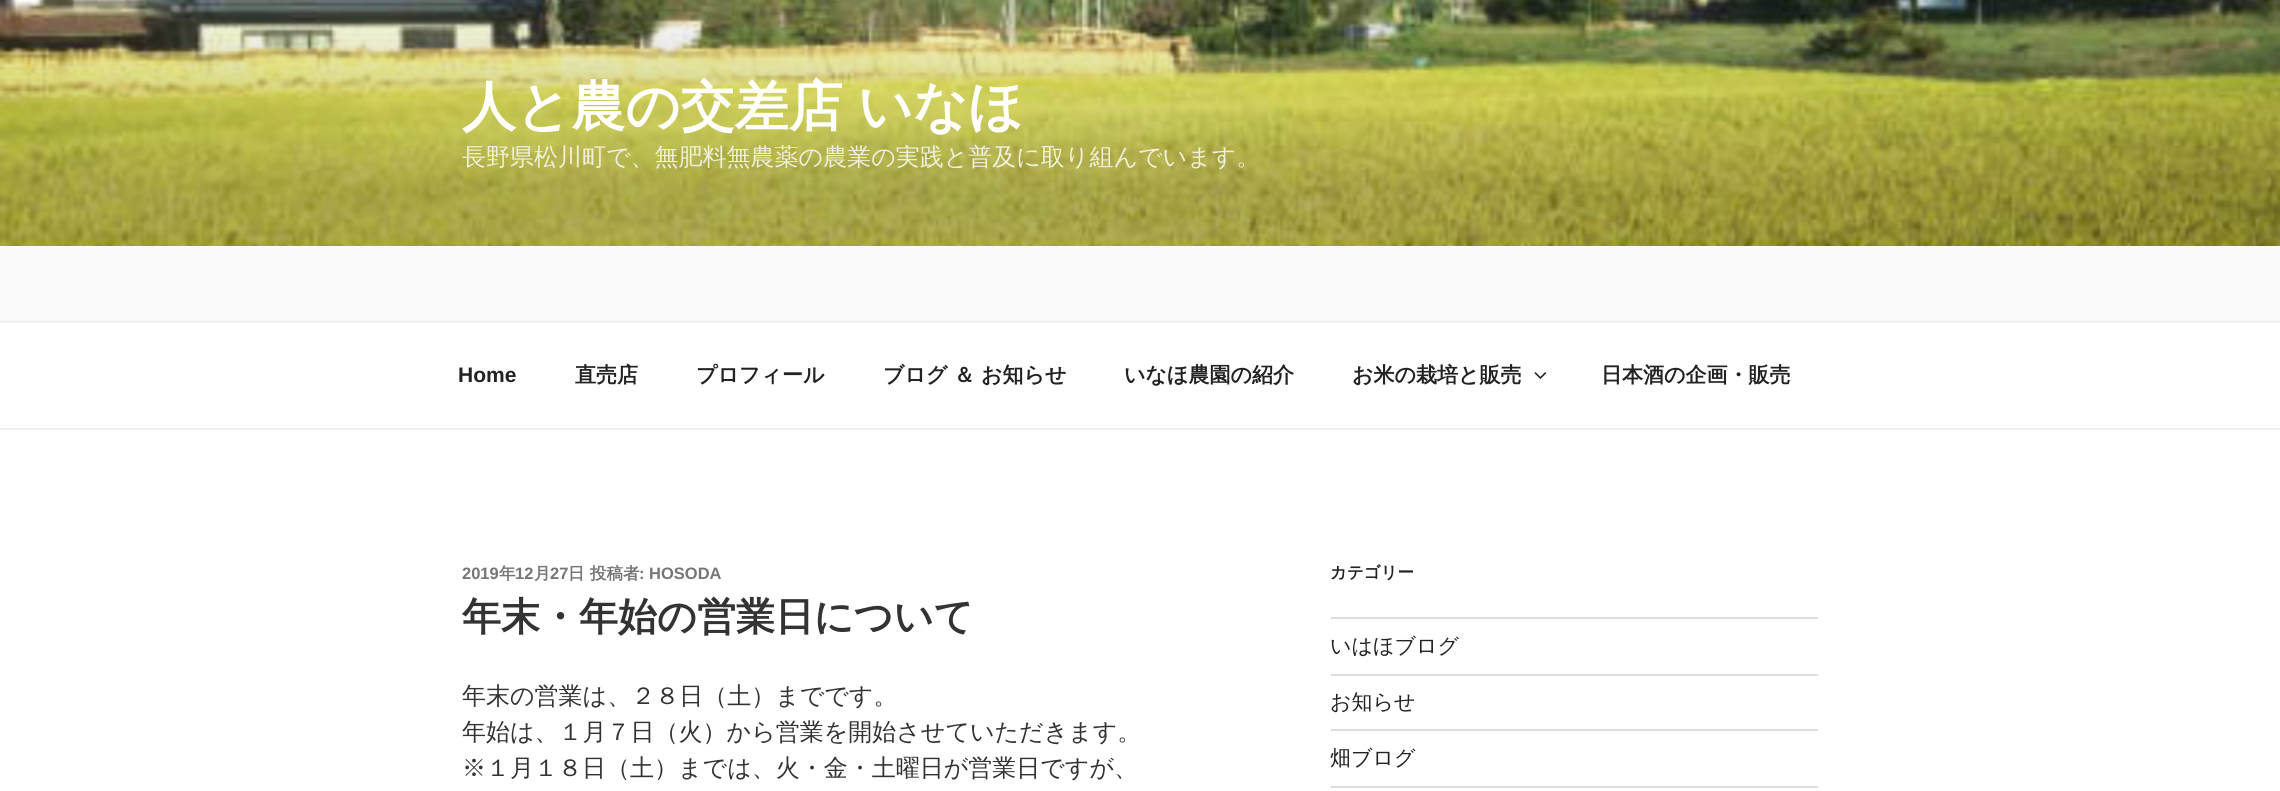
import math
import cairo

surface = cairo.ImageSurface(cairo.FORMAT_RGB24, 2280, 791)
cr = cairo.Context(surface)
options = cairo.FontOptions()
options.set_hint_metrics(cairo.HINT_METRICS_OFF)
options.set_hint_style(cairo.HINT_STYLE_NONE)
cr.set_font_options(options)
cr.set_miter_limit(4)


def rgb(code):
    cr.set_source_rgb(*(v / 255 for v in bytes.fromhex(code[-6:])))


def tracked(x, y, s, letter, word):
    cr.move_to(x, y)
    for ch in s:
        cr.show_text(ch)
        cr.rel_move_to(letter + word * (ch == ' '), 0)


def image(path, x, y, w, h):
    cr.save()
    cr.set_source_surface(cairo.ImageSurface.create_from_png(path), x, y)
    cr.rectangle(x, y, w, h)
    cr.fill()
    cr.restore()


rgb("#ffffff")
cr.paint()
rgb("#fafafa")
cr.rectangle(0, 246, 2280, 75)
cr.fill()
image("img/1.png", 0, 0, 2280, 246)
rgb("#eeeeee")
cr.rectangle(0, 321, 2280, 2)
cr.fill()
cr.rectangle(0, 428, 2280, 2)
cr.fill()
image("img/2.png", 1534, 372, 13, 7)
for x, y, w, h, color in [
    (1331, 617, 487, 2, "#dddddd"),
    (1331, 674, 487, 2, "#dddddd"),
    (1331, 729, 487, 2, "#dddddd"),
    (1331, 786, 487, 2, "#dddddd"),
]:
    rgb(color)
    cr.rectangle(x, y, w, h)
    cr.fill()
cr.select_font_face("WenQuanYi Zen Hei", cairo.FONT_SLANT_NORMAL, cairo.FONT_WEIGHT_BOLD)
cr.set_font_size(54)
rgb("#ffffff")
tracked(462, 125, "人と農の交差店 いなほ", 0, -1)
cr.select_font_face("WenQuanYi Zen Hei Medium")
cr.set_font_size(24)
rgb("#f0f0db")
cr.move_to(462, 165)
cr.show_text("長野県松川町で、無肥料無農薬の農業の実践と普及に取り組んでいます。")
cr.select_font_face("Liberation Sans", cairo.FONT_SLANT_NORMAL, cairo.FONT_WEIGHT_BOLD)
cr.set_font_size(21)
rgb("#222222")
cr.move_to(458, 382)
cr.show_text("Home")
cr.select_font_face("WenQuanYi Zen Hei", cairo.FONT_SLANT_NORMAL, cairo.FONT_WEIGHT_BOLD)
for x, y, s in [
    (575, 382, "直売店"),
    (696, 382, "プロフィール"),
    (883, 382, "ブログ ＆ お知らせ"),
    (1124, 382, "いなほ農園の紹介"),
    (1352, 382, "お米の栽培と販売"),
    (1601, 382, "日本酒の企画・販売"),
]:
    cr.move_to(x, y)
    cr.show_text(s)
cr.select_font_face("Liberation Sans", cairo.FONT_SLANT_NORMAL, cairo.FONT_WEIGHT_BOLD)
cr.set_font_size(16.5)
rgb("#767676")
cr.move_to(462, 579)
cr.show_text("2019")
cr.select_font_face("WenQuanYi Zen Hei", cairo.FONT_SLANT_NORMAL, cairo.FONT_WEIGHT_BOLD)
cr.move_to(499, 579)
cr.show_text("年")
cr.select_font_face("Liberation Sans", cairo.FONT_SLANT_NORMAL, cairo.FONT_WEIGHT_BOLD)
cr.move_to(515, 579)
cr.show_text("12")
cr.select_font_face("WenQuanYi Zen Hei", cairo.FONT_SLANT_NORMAL, cairo.FONT_WEIGHT_BOLD)
cr.move_to(534, 579)
cr.show_text("月")
cr.select_font_face("Liberation Sans", cairo.FONT_SLANT_NORMAL, cairo.FONT_WEIGHT_BOLD)
cr.move_to(550, 579)
cr.show_text("27")
cr.select_font_face("WenQuanYi Zen Hei", cairo.FONT_SLANT_NORMAL, cairo.FONT_WEIGHT_BOLD)
cr.move_to(568, 579)
cr.show_text("日")
cr.move_to(590, 579)
cr.show_text("投稿者")
cr.select_font_face("Liberation Sans", cairo.FONT_SLANT_NORMAL, cairo.FONT_WEIGHT_BOLD)
cr.move_to(639, 579)
cr.show_text(": HOSODA")
cr.select_font_face("WenQuanYi Zen Hei", cairo.FONT_SLANT_NORMAL, cairo.FONT_WEIGHT_BOLD)
cr.set_font_size(39)
rgb("#333333")
cr.move_to(462, 630)
cr.show_text("年末・年始の営業日について")
cr.select_font_face("WenQuanYi Zen Hei Medium")
cr.set_font_size(24)
for x, y, s in [
    (462, 704, "年末の営業は、２８日（土）までです。"),
    (462, 740, "年始は、１月７日（火）から営業を開始させていただきます。"),
    (462, 776, "※１月１８日（土）までは、火・金・土曜日が営業日ですが、"),
]:
    cr.move_to(x, y)
    cr.show_text(s)
cr.select_font_face("WenQuanYi Zen Hei", cairo.FONT_SLANT_NORMAL, cairo.FONT_WEIGHT_BOLD)
cr.set_font_size(16.5)
rgb("#222222")
cr.move_to(1330, 578)
cr.show_text("カテゴリー")
cr.select_font_face("WenQuanYi Zen Hei Medium")
cr.set_font_size(21)
for x, y, s in [
    (1330, 653, "いはほブログ"),
    (1330, 709, "お知らせ"),
    (1330, 765, "畑ブログ"),
]:
    cr.move_to(x, y)
    cr.show_text(s)
surface.write_to_png("page.png")
